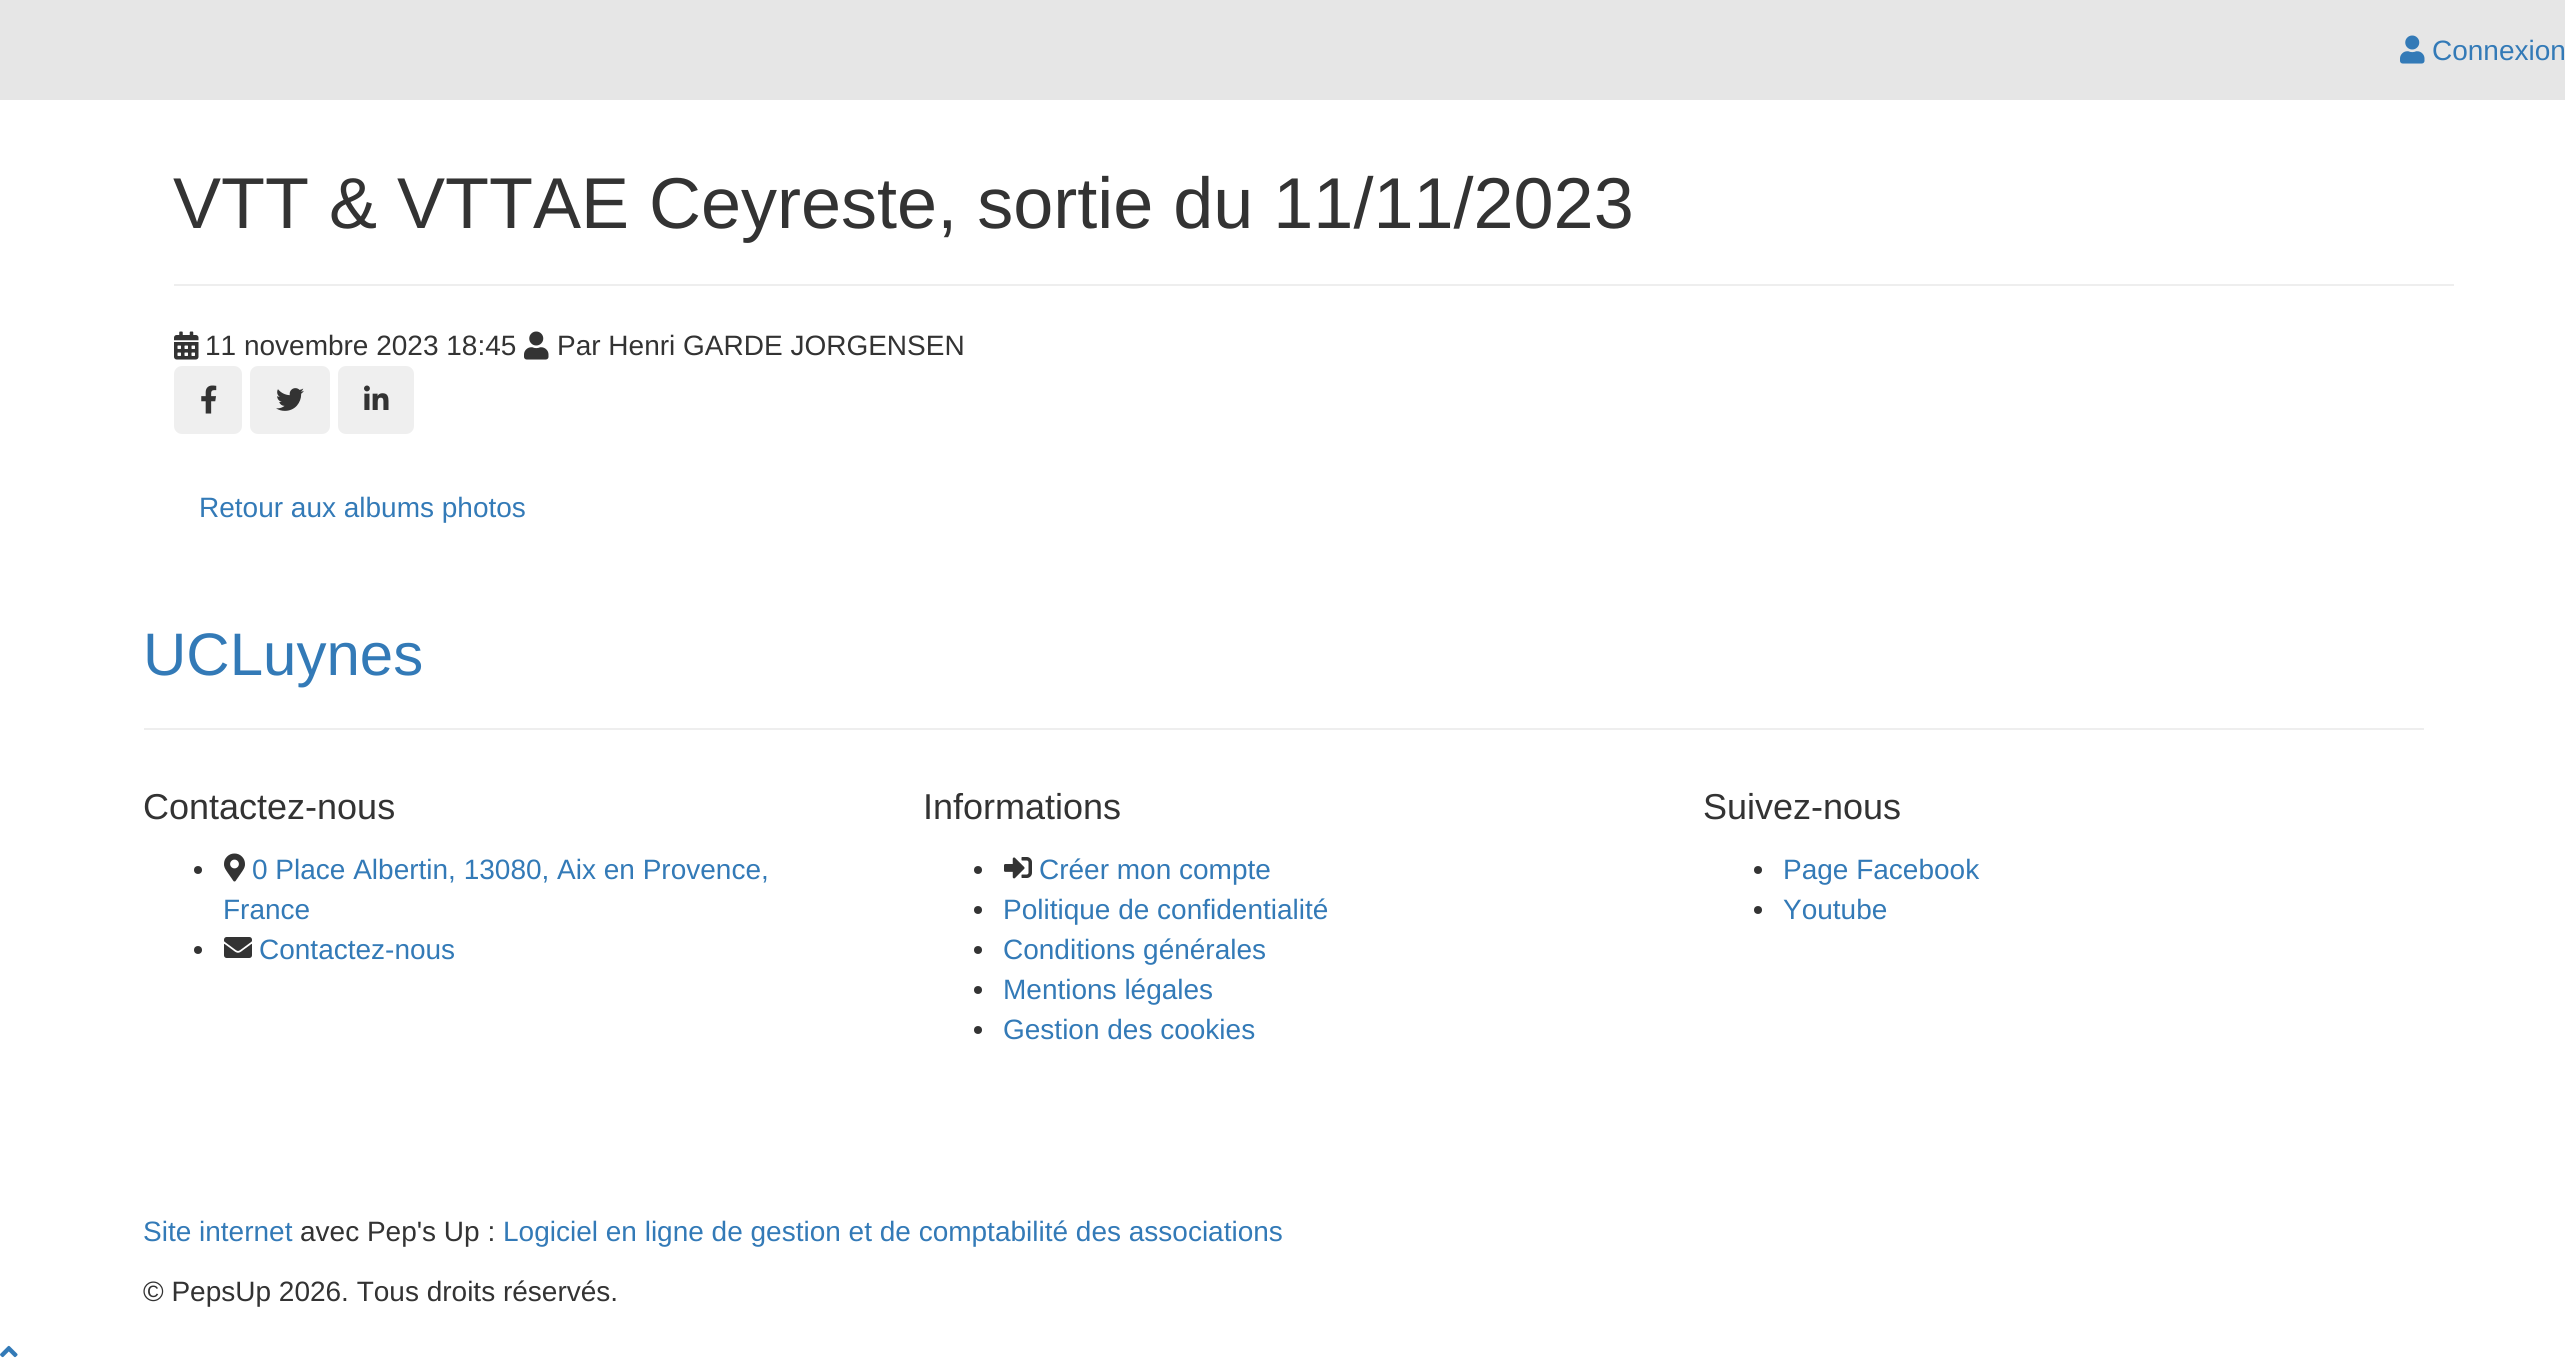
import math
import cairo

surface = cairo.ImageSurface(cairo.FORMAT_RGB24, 2565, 1359)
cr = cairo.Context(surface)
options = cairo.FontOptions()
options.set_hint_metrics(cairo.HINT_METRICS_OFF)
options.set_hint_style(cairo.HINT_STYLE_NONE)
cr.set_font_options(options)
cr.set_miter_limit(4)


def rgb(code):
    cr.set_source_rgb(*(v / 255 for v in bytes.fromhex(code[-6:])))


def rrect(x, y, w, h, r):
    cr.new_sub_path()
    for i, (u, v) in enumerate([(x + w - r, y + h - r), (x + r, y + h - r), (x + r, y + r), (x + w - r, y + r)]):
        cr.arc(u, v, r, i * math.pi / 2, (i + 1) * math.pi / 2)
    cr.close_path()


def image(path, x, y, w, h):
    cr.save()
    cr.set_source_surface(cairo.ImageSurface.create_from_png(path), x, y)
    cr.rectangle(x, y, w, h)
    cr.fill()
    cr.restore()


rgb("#ffffff")
cr.paint()
rgb("#e6e6e6")
cr.rectangle(0, 0, 2565, 100)
cr.fill()
image("img/1.png", 2400, 35, 25, 29)
rgb("#eeeeee")
cr.rectangle(174, 284, 2280, 2)
cr.fill()
image("img/2.png", 174, 331, 25, 29)
image("img/3.png", 524, 331, 25, 29)
rgb("#efefef")
rrect(174, 366, 68, 68, 8)
cr.fill()
image("img/4.png", 201, 385, 16, 29)
rrect(250, 366, 80, 68, 8)
cr.fill()
image("img/5.png", 276, 388, 28, 23)
rrect(338, 366, 76, 68, 8)
cr.fill()
image("img/6.png", 364, 385, 25, 25)
rgb("#eeeeee")
cr.rectangle(144, 728, 2280, 2)
cr.fill()
rgb("#333333")
cr.arc(198, 870, 4, 0, 2 * math.pi)
cr.fill()
image("img/7.png", 224, 853, 21, 29)
cr.arc(198, 950, 4, 0, 2 * math.pi)
cr.fill()
image("img/8.png", 224, 937, 28, 21)
cr.arc(978, 870, 4, 0, 2 * math.pi)
cr.fill()
image("img/9.png", 1004, 857, 28, 22)
cr.arc(978, 910, 4, 0, 2 * math.pi)
cr.fill()
cr.arc(978, 950, 4, 0, 2 * math.pi)
cr.fill()
cr.arc(978, 990, 4, 0, 2 * math.pi)
cr.fill()
cr.arc(978, 1030, 4, 0, 2 * math.pi)
cr.fill()
cr.arc(1758, 870, 4, 0, 2 * math.pi)
cr.fill()
cr.arc(1758, 910, 4, 0, 2 * math.pi)
cr.fill()
image("img/10.png", 0, 1345, 18, 13)
cr.select_font_face("Liberation Sans")
cr.set_font_size(28)
rgb("#337ab7")
cr.move_to(2432, 60)
cr.show_text("Connexion")
cr.set_font_size(72)
rgb("#333333")
cr.move_to(173, 228)
cr.show_text("VTT & VTTAE Ceyreste, sortie du 11/11/2023")
cr.set_font_size(28)
cr.move_to(205, 355)
cr.show_text("11 novembre 2023 18:45")
cr.move_to(557, 355)
cr.show_text("Par Henri GARDE JORGENSEN")
rgb("#337ab7")
cr.move_to(199, 517)
cr.show_text("Retour aux albums photos")
cr.set_font_size(60)
cr.move_to(143, 675)
cr.show_text("UCLuynes")
cr.set_font_size(36)
rgb("#333333")
cr.move_to(143, 819)
cr.show_text("Contactez-nous")
cr.set_font_size(28)
rgb("#337ab7")
for x, y, s in [
    (252, 879, "0 Place Albertin, 13080, Aix en Provence,"),
    (223, 919, "France"),
    (259, 959, "Contactez-nous"),
]:
    cr.move_to(x, y)
    cr.show_text(s)
cr.set_font_size(36)
rgb("#333333")
cr.move_to(923, 819)
cr.show_text("Informations")
cr.set_font_size(28)
rgb("#337ab7")
for x, y, s in [
    (1039, 879, "Créer mon compte"),
    (1003, 919, "Politique de confidentialité"),
    (1003, 959, "Conditions générales"),
    (1003, 999, "Mentions légales"),
    (1003, 1039, "Gestion des cookies"),
]:
    cr.move_to(x, y)
    cr.show_text(s)
cr.set_font_size(36)
rgb("#333333")
cr.move_to(1703, 819)
cr.show_text("Suivez-nous")
cr.set_font_size(28)
rgb("#337ab7")
for x, y, s in [
    (1783, 879, "Page Facebook"),
    (1783, 919, "Youtube"),
    (143, 1241, "Site internet"),
]:
    cr.move_to(x, y)
    cr.show_text(s)
rgb("#333333")
cr.move_to(300, 1241)
cr.show_text("avec Pep's Up :")
rgb("#337ab7")
cr.move_to(503, 1241)
cr.show_text("Logiciel en ligne de gestion et de comptabilité des associations")
rgb("#333333")
cr.move_to(143, 1301)
cr.show_text("© PepsUp 2026. Tous droits réservés.")
surface.write_to_png("page.png")
